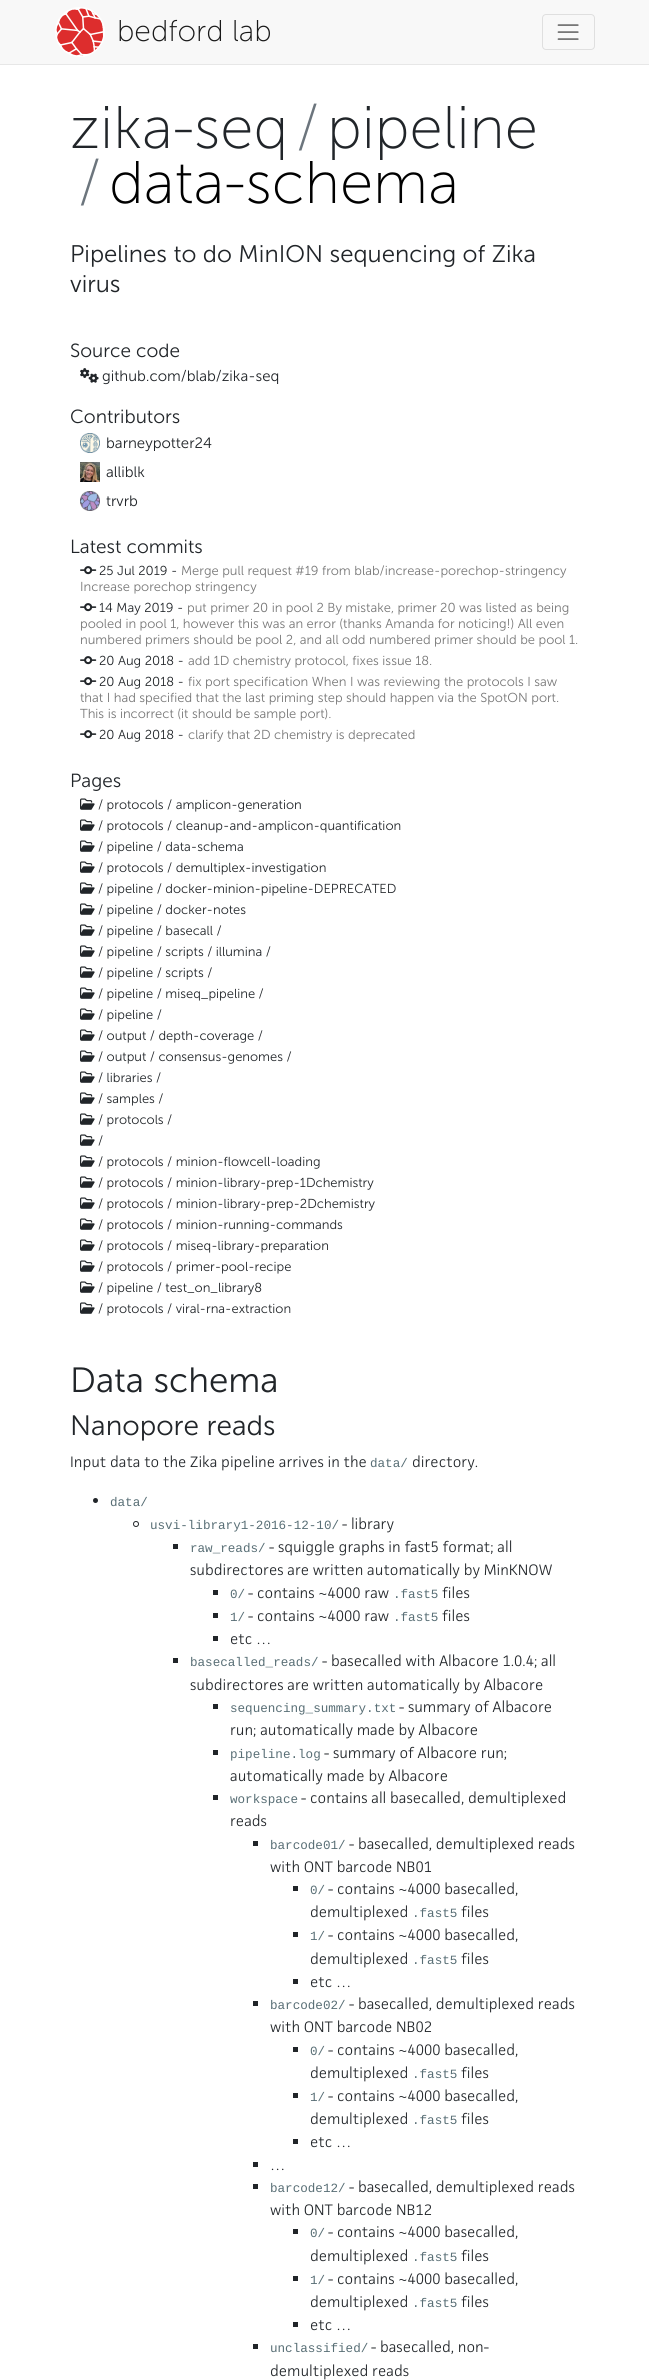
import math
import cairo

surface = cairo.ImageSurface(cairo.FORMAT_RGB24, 649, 2380)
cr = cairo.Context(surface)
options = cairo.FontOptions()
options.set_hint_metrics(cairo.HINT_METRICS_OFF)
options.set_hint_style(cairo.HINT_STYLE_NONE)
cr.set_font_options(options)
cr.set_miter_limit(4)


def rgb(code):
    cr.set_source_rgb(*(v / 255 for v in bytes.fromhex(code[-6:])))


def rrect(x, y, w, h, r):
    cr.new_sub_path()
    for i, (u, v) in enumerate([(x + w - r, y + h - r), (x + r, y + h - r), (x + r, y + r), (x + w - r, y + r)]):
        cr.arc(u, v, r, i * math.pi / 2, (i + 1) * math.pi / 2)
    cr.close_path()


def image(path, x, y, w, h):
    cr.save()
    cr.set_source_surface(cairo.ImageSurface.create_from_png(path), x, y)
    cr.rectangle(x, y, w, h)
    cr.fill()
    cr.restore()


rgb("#ffffff")
cr.paint()
rgb("#f8f8f8")
cr.rectangle(0, 0, 649, 64)
cr.fill()
rgb("#e7e7e7")
cr.rectangle(0, 64, 649, 1)
cr.fill()
image("img/1.png", 55, 7, 50, 50)
rrect(542.5, 14.5, 52, 35, 3.5)
rgb("#dfdfdf")
cr.set_line_width(1)
cr.stroke()
image("img/2.png", 557, 24, 22, 16)
image("img/3.png", 80, 368, 19, 15)
image("img/4.png", 80, 433, 20, 20)
image("img/5.png", 80, 462, 20, 20)
image("img/6.png", 80, 491, 20, 20)
image("img/7.png", 80, 566, 17, 9)
image("img/7.png", 80, 603, 17, 9)
image("img/7.png", 80, 656, 17, 9)
image("img/7.png", 80, 677, 17, 9)
image("img/7.png", 80, 730, 17, 9)
image("img/8.png", 80, 798, 15, 12)
image("img/8.png", 80, 819, 15, 12)
image("img/8.png", 80, 840, 15, 12)
image("img/8.png", 80, 861, 15, 12)
image("img/8.png", 80, 882, 15, 12)
image("img/8.png", 80, 903, 15, 12)
image("img/8.png", 80, 924, 15, 12)
image("img/8.png", 80, 945, 15, 12)
image("img/8.png", 80, 966, 15, 12)
image("img/8.png", 80, 987, 15, 12)
image("img/8.png", 80, 1008, 15, 12)
image("img/8.png", 80, 1029, 15, 12)
image("img/8.png", 80, 1050, 15, 12)
image("img/8.png", 80, 1071, 15, 12)
image("img/8.png", 80, 1092, 15, 12)
image("img/8.png", 80, 1113, 15, 12)
image("img/8.png", 80, 1134, 15, 12)
image("img/8.png", 80, 1155, 15, 12)
image("img/8.png", 80, 1176, 15, 12)
image("img/8.png", 80, 1197, 15, 12)
image("img/8.png", 80, 1218, 15, 12)
image("img/8.png", 80, 1239, 15, 12)
image("img/8.png", 80, 1260, 15, 12)
image("img/8.png", 80, 1281, 15, 12)
image("img/8.png", 80, 1302, 15, 12)
rgb("#212529")
cr.arc(95.5, 1500.5, 2.5, 0, 2 * math.pi)
cr.fill()
cr.arc(136, 1524, 2.5, 0, 2 * math.pi)
cr.stroke()
for x, y, w, h, color in [
    (173, 1544, 5, 5, "#212529"),
    (213, 1590, 5, 5, "#212529"),
    (213, 1613, 5, 5, "#212529"),
    (213, 1636, 5, 5, "#212529"),
    (173, 1658, 5, 5, "#212529"),
    (213, 1704, 5, 5, "#212529"),
    (213, 1750, 5, 5, "#212529"),
    (213, 1795, 5, 5, "#212529"),
    (253, 1841, 5, 5, "#212529"),
    (293, 1886, 5, 5, "#212529"),
    (293, 1932, 5, 5, "#212529"),
    (293, 1979, 5, 5, "#212529"),
    (253, 2001, 5, 5, "#212529"),
    (293, 2047, 5, 5, "#212529"),
    (293, 2093, 5, 5, "#212529"),
    (293, 2139, 5, 5, "#212529"),
    (253, 2162, 5, 5, "#212529"),
    (253, 2184, 5, 5, "#212529"),
    (293, 2229, 5, 5, "#212529"),
    (293, 2276, 5, 5, "#212529"),
    (293, 2322, 5, 5, "#212529"),
    (253, 2344, 5, 5, "#212529"),
]:
    rgb(color)
    cr.rectangle(x, y, w, h)
    cr.fill()
cr.select_font_face("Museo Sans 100 Light")
cr.set_font_size(30)
rgb("#191919")
cr.move_to(117, 41)
cr.show_text("bedford lab")
cr.set_font_size(60)
rgb("#212529")
cr.move_to(70, 148)
cr.show_text("zika-seq")
rgb("#6c757d")
cr.move_to(296, 148)
cr.show_text("/")
rgb("#212529")
cr.move_to(327, 148)
cr.show_text("pipeline")
rgb("#6c757d")
cr.move_to(78, 203)
cr.show_text("/")
rgb("#000000")
cr.move_to(109, 203)
cr.show_text("data-schema")
cr.select_font_face("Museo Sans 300 Light")
cr.set_font_size(24)
rgb("#212529")
cr.move_to(70, 262)
cr.show_text("Pipelines to do MinION sequencing of Zika")
cr.move_to(70, 292)
cr.show_text("virus")
cr.set_font_size(19)
cr.move_to(70, 357)
cr.show_text("Source code")
cr.set_font_size(15)
cr.move_to(102, 381)
cr.show_text("github.com/blab/zika-seq")
cr.set_font_size(19)
cr.move_to(70, 423)
cr.show_text("Contributors")
cr.set_font_size(15)
for x, y, s in [
    (106, 448, "barneypotter24"),
    (106, 477, "alliblk"),
    (106, 506, "trvrb"),
]:
    cr.move_to(x, y)
    cr.show_text(s)
cr.set_font_size(19)
cr.move_to(70, 553)
cr.show_text("Latest commits")
cr.set_font_size(13)
cr.move_to(99, 575)
cr.show_text("25 Jul 2019 -")
rgb("#777777")
cr.move_to(181, 575)
cr.show_text("Merge pull request #19 from blab/increase-porechop-stringency")
cr.move_to(80, 591)
cr.show_text("Increase porechop stringency")
rgb("#212529")
cr.move_to(99, 612)
cr.show_text("14 May 2019 -")
rgb("#777777")
for x, y, s in [
    (187, 612, "put primer 20 in pool 2 By mistake, primer 20 was listed as being"),
    (80, 628, "pooled in pool 1, however this was an error (thanks Amanda for noticing!) All even"),
    (80, 644, "numbered primers should be pool 2, and all odd numbered primer should be pool 1."),
]:
    cr.move_to(x, y)
    cr.show_text(s)
rgb("#212529")
cr.move_to(99, 665)
cr.show_text("20 Aug 2018 -")
rgb("#777777")
cr.move_to(188, 665)
cr.show_text("add 1D chemistry protocol, fixes issue 18.")
rgb("#212529")
cr.move_to(99, 686)
cr.show_text("20 Aug 2018 -")
rgb("#777777")
for x, y, s in [
    (188, 686, "fix port specification When I was reviewing the protocols I saw"),
    (80, 702, "that I had specified that the last priming step should happen via the SpotON port."),
    (80, 718, "This is incorrect (it should be sample port)."),
]:
    cr.move_to(x, y)
    cr.show_text(s)
rgb("#212529")
cr.move_to(99, 739)
cr.show_text("20 Aug 2018 -")
rgb("#777777")
cr.move_to(188, 739)
cr.show_text("clarify that 2D chemistry is deprecated")
cr.set_font_size(19)
rgb("#212529")
cr.move_to(70, 787)
cr.show_text("Pages")
cr.set_font_size(13)
for x, y, s in [
    (98, 809, "/ protocols / amplicon-generation"),
    (98, 830, "/ protocols / cleanup-and-amplicon-quantification"),
    (98, 851, "/ pipeline / data-schema"),
    (98, 872, "/ protocols / demultiplex-investigation"),
    (98, 893, "/ pipeline / docker-minion-pipeline-DEPRECATED"),
    (98, 914, "/ pipeline / docker-notes"),
    (98, 935, "/ pipeline / basecall /"),
    (98, 956, "/ pipeline / scripts / illumina /"),
    (98, 977, "/ pipeline / scripts /"),
    (98, 998, "/ pipeline / miseq_pipeline /"),
    (98, 1019, "/ pipeline /"),
    (98, 1040, "/ output / depth-coverage /"),
    (98, 1061, "/ output / consensus-genomes /"),
    (98, 1082, "/ libraries /"),
    (98, 1103, "/ samples /"),
    (98, 1124, "/ protocols /"),
    (98, 1145, "/"),
    (98, 1166, "/ protocols / minion-flowcell-loading"),
    (98, 1187, "/ protocols / minion-library-prep-1Dchemistry"),
    (98, 1208, "/ protocols / minion-library-prep-2Dchemistry"),
    (98, 1229, "/ protocols / minion-running-commands"),
    (98, 1250, "/ protocols / miseq-library-preparation"),
    (98, 1271, "/ protocols / primer-pool-recipe"),
    (98, 1292, "/ pipeline / test_on_library8"),
    (98, 1313, "/ protocols / viral-rna-extraction"),
]:
    cr.move_to(x, y)
    cr.show_text(s)
cr.set_font_size(35)
cr.move_to(70, 1392)
cr.show_text("Data schema")
cr.set_font_size(28)
cr.move_to(70, 1435)
cr.show_text("Nanopore reads")
cr.select_font_face("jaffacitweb")
cr.set_font_size(14)
cr.move_to(70, 1467)
cr.show_text("Input data to the Zika pipeline arrives in the")
cr.select_font_face("Liberation Mono")
cr.set_font_size(12.6)
rgb("#586e75")
cr.move_to(370, 1467)
cr.show_text("data/")
cr.select_font_face("jaffacitweb")
cr.set_font_size(14)
rgb("#212529")
cr.move_to(412, 1467)
cr.show_text("directory.")
cr.select_font_face("Liberation Mono")
cr.set_font_size(12.6)
rgb("#586e75")
cr.move_to(110, 1506)
cr.show_text("data/")
cr.move_to(150, 1529)
cr.show_text("usvi-library1-2016-12-10/")
cr.select_font_face("jaffacitweb")
cr.set_font_size(14)
rgb("#212529")
cr.move_to(342, 1529)
cr.show_text("- library")
cr.select_font_face("Liberation Mono")
cr.set_font_size(12.6)
rgb("#586e75")
cr.move_to(190, 1552)
cr.show_text("raw_reads/")
cr.select_font_face("jaffacitweb")
cr.set_font_size(14)
rgb("#212529")
cr.move_to(269, 1552)
cr.show_text("- squiggle graphs in fast5 format; all")
cr.move_to(190, 1575)
cr.show_text("subdirectores are written automatically by MinKNOW")
cr.select_font_face("Liberation Mono")
cr.set_font_size(12.6)
rgb("#586e75")
cr.move_to(230, 1598)
cr.show_text("0/")
cr.select_font_face("jaffacitweb")
cr.set_font_size(14)
rgb("#212529")
cr.move_to(248, 1598)
cr.show_text("- contains ~4000 raw")
cr.select_font_face("Liberation Mono")
cr.set_font_size(12.6)
rgb("#586e75")
cr.move_to(393, 1598)
cr.show_text(".fast5")
cr.select_font_face("jaffacitweb")
cr.set_font_size(14)
rgb("#212529")
cr.move_to(442, 1598)
cr.show_text("files")
cr.select_font_face("Liberation Mono")
cr.set_font_size(12.6)
rgb("#586e75")
cr.move_to(230, 1621)
cr.show_text("1/")
cr.select_font_face("jaffacitweb")
cr.set_font_size(14)
rgb("#212529")
cr.move_to(248, 1621)
cr.show_text("- contains ~4000 raw")
cr.select_font_face("Liberation Mono")
cr.set_font_size(12.6)
rgb("#586e75")
cr.move_to(393, 1621)
cr.show_text(".fast5")
cr.select_font_face("jaffacitweb")
cr.set_font_size(14)
rgb("#212529")
cr.move_to(442, 1621)
cr.show_text("files")
cr.move_to(230, 1644)
cr.show_text("etc …")
cr.select_font_face("Liberation Mono")
cr.set_font_size(12.6)
rgb("#586e75")
cr.move_to(190, 1666)
cr.show_text("basecalled_reads/")
cr.select_font_face("jaffacitweb")
cr.set_font_size(14)
rgb("#212529")
cr.move_to(322, 1666)
cr.show_text("- basecalled with Albacore 1.0.4; all")
cr.move_to(190, 1690)
cr.show_text("subdirectores are written automatically by Albacore")
cr.select_font_face("Liberation Mono")
cr.set_font_size(12.6)
rgb("#586e75")
cr.move_to(230, 1712)
cr.show_text("sequencing_summary.txt")
cr.select_font_face("jaffacitweb")
cr.set_font_size(14)
rgb("#212529")
cr.move_to(399, 1712)
cr.show_text("- summary of Albacore")
cr.move_to(230, 1735)
cr.show_text("run; automatically made by Albacore")
cr.select_font_face("Liberation Mono")
cr.set_font_size(12.6)
rgb("#586e75")
cr.move_to(230, 1758)
cr.show_text("pipeline.log")
cr.select_font_face("jaffacitweb")
cr.set_font_size(14)
rgb("#212529")
cr.move_to(324, 1758)
cr.show_text("- summary of Albacore run;")
cr.move_to(230, 1781)
cr.show_text("automatically made by Albacore")
cr.select_font_face("Liberation Mono")
cr.set_font_size(12.6)
rgb("#586e75")
cr.move_to(230, 1803)
cr.show_text("workspace")
cr.select_font_face("jaffacitweb")
cr.set_font_size(14)
rgb("#212529")
cr.move_to(301, 1803)
cr.show_text("- contains all basecalled, demultiplexed")
cr.move_to(230, 1826)
cr.show_text("reads")
cr.select_font_face("Liberation Mono")
cr.set_font_size(12.6)
rgb("#586e75")
cr.move_to(270, 1849)
cr.show_text("barcode01/")
cr.select_font_face("jaffacitweb")
cr.set_font_size(14)
rgb("#212529")
cr.move_to(349, 1849)
cr.show_text("- basecalled, demultiplexed reads")
cr.move_to(270, 1872)
cr.show_text("with ONT barcode NB01")
cr.select_font_face("Liberation Mono")
cr.set_font_size(12.6)
rgb("#586e75")
cr.move_to(310, 1894)
cr.show_text("0/")
cr.select_font_face("jaffacitweb")
cr.set_font_size(14)
rgb("#212529")
cr.move_to(328, 1894)
cr.show_text("- contains ~4000 basecalled,")
cr.move_to(310, 1917)
cr.show_text("demultiplexed")
cr.select_font_face("Liberation Mono")
cr.set_font_size(12.6)
rgb("#586e75")
cr.move_to(412, 1917)
cr.show_text(".fast5")
cr.select_font_face("jaffacitweb")
cr.set_font_size(14)
rgb("#212529")
cr.move_to(461, 1917)
cr.show_text("files")
cr.select_font_face("Liberation Mono")
cr.set_font_size(12.6)
rgb("#586e75")
cr.move_to(310, 1940)
cr.show_text("1/")
cr.select_font_face("jaffacitweb")
cr.set_font_size(14)
rgb("#212529")
cr.move_to(328, 1940)
cr.show_text("- contains ~4000 basecalled,")
cr.move_to(310, 1964)
cr.show_text("demultiplexed")
cr.select_font_face("Liberation Mono")
cr.set_font_size(12.6)
rgb("#586e75")
cr.move_to(412, 1964)
cr.show_text(".fast5")
cr.select_font_face("jaffacitweb")
cr.set_font_size(14)
rgb("#212529")
cr.move_to(461, 1964)
cr.show_text("files")
cr.move_to(310, 1987)
cr.show_text("etc …")
cr.select_font_face("Liberation Mono")
cr.set_font_size(12.6)
rgb("#586e75")
cr.move_to(270, 2009)
cr.show_text("barcode02/")
cr.select_font_face("jaffacitweb")
cr.set_font_size(14)
rgb("#212529")
cr.move_to(349, 2009)
cr.show_text("- basecalled, demultiplexed reads")
cr.move_to(270, 2032)
cr.show_text("with ONT barcode NB02")
cr.select_font_face("Liberation Mono")
cr.set_font_size(12.6)
rgb("#586e75")
cr.move_to(310, 2055)
cr.show_text("0/")
cr.select_font_face("jaffacitweb")
cr.set_font_size(14)
rgb("#212529")
cr.move_to(328, 2055)
cr.show_text("- contains ~4000 basecalled,")
cr.move_to(310, 2078)
cr.show_text("demultiplexed")
cr.select_font_face("Liberation Mono")
cr.set_font_size(12.6)
rgb("#586e75")
cr.move_to(412, 2078)
cr.show_text(".fast5")
cr.select_font_face("jaffacitweb")
cr.set_font_size(14)
rgb("#212529")
cr.move_to(461, 2078)
cr.show_text("files")
cr.select_font_face("Liberation Mono")
cr.set_font_size(12.6)
rgb("#586e75")
cr.move_to(310, 2101)
cr.show_text("1/")
cr.select_font_face("jaffacitweb")
cr.set_font_size(14)
rgb("#212529")
cr.move_to(328, 2101)
cr.show_text("- contains ~4000 basecalled,")
cr.move_to(310, 2124)
cr.show_text("demultiplexed")
cr.select_font_face("Liberation Mono")
cr.set_font_size(12.6)
rgb("#586e75")
cr.move_to(412, 2124)
cr.show_text(".fast5")
cr.select_font_face("jaffacitweb")
cr.set_font_size(14)
rgb("#212529")
for x, y, s in [
    (461, 2124, "files"),
    (310, 2147, "etc …"),
    (270, 2170, "…"),
]:
    cr.move_to(x, y)
    cr.show_text(s)
cr.select_font_face("Liberation Mono")
cr.set_font_size(12.6)
rgb("#586e75")
cr.move_to(270, 2192)
cr.show_text("barcode12/")
cr.select_font_face("jaffacitweb")
cr.set_font_size(14)
rgb("#212529")
cr.move_to(349, 2192)
cr.show_text("- basecalled, demultiplexed reads")
cr.move_to(270, 2215)
cr.show_text("with ONT barcode NB12")
cr.select_font_face("Liberation Mono")
cr.set_font_size(12.6)
rgb("#586e75")
cr.move_to(310, 2237)
cr.show_text("0/")
cr.select_font_face("jaffacitweb")
cr.set_font_size(14)
rgb("#212529")
cr.move_to(328, 2237)
cr.show_text("- contains ~4000 basecalled,")
cr.move_to(310, 2261)
cr.show_text("demultiplexed")
cr.select_font_face("Liberation Mono")
cr.set_font_size(12.6)
rgb("#586e75")
cr.move_to(412, 2261)
cr.show_text(".fast5")
cr.select_font_face("jaffacitweb")
cr.set_font_size(14)
rgb("#212529")
cr.move_to(461, 2261)
cr.show_text("files")
cr.select_font_face("Liberation Mono")
cr.set_font_size(12.6)
rgb("#586e75")
cr.move_to(310, 2284)
cr.show_text("1/")
cr.select_font_face("jaffacitweb")
cr.set_font_size(14)
rgb("#212529")
cr.move_to(328, 2284)
cr.show_text("- contains ~4000 basecalled,")
cr.move_to(310, 2307)
cr.show_text("demultiplexed")
cr.select_font_face("Liberation Mono")
cr.set_font_size(12.6)
rgb("#586e75")
cr.move_to(412, 2307)
cr.show_text(".fast5")
cr.select_font_face("jaffacitweb")
cr.set_font_size(14)
rgb("#212529")
cr.move_to(461, 2307)
cr.show_text("files")
cr.move_to(310, 2330)
cr.show_text("etc …")
cr.select_font_face("Liberation Mono")
cr.set_font_size(12.6)
rgb("#586e75")
cr.move_to(270, 2352)
cr.show_text("unclassified/")
cr.select_font_face("jaffacitweb")
cr.set_font_size(14)
rgb("#212529")
cr.move_to(371, 2352)
cr.show_text("- basecalled, non-")
cr.move_to(270, 2376)
cr.show_text("demultiplexed reads")
surface.write_to_png("page.png")
